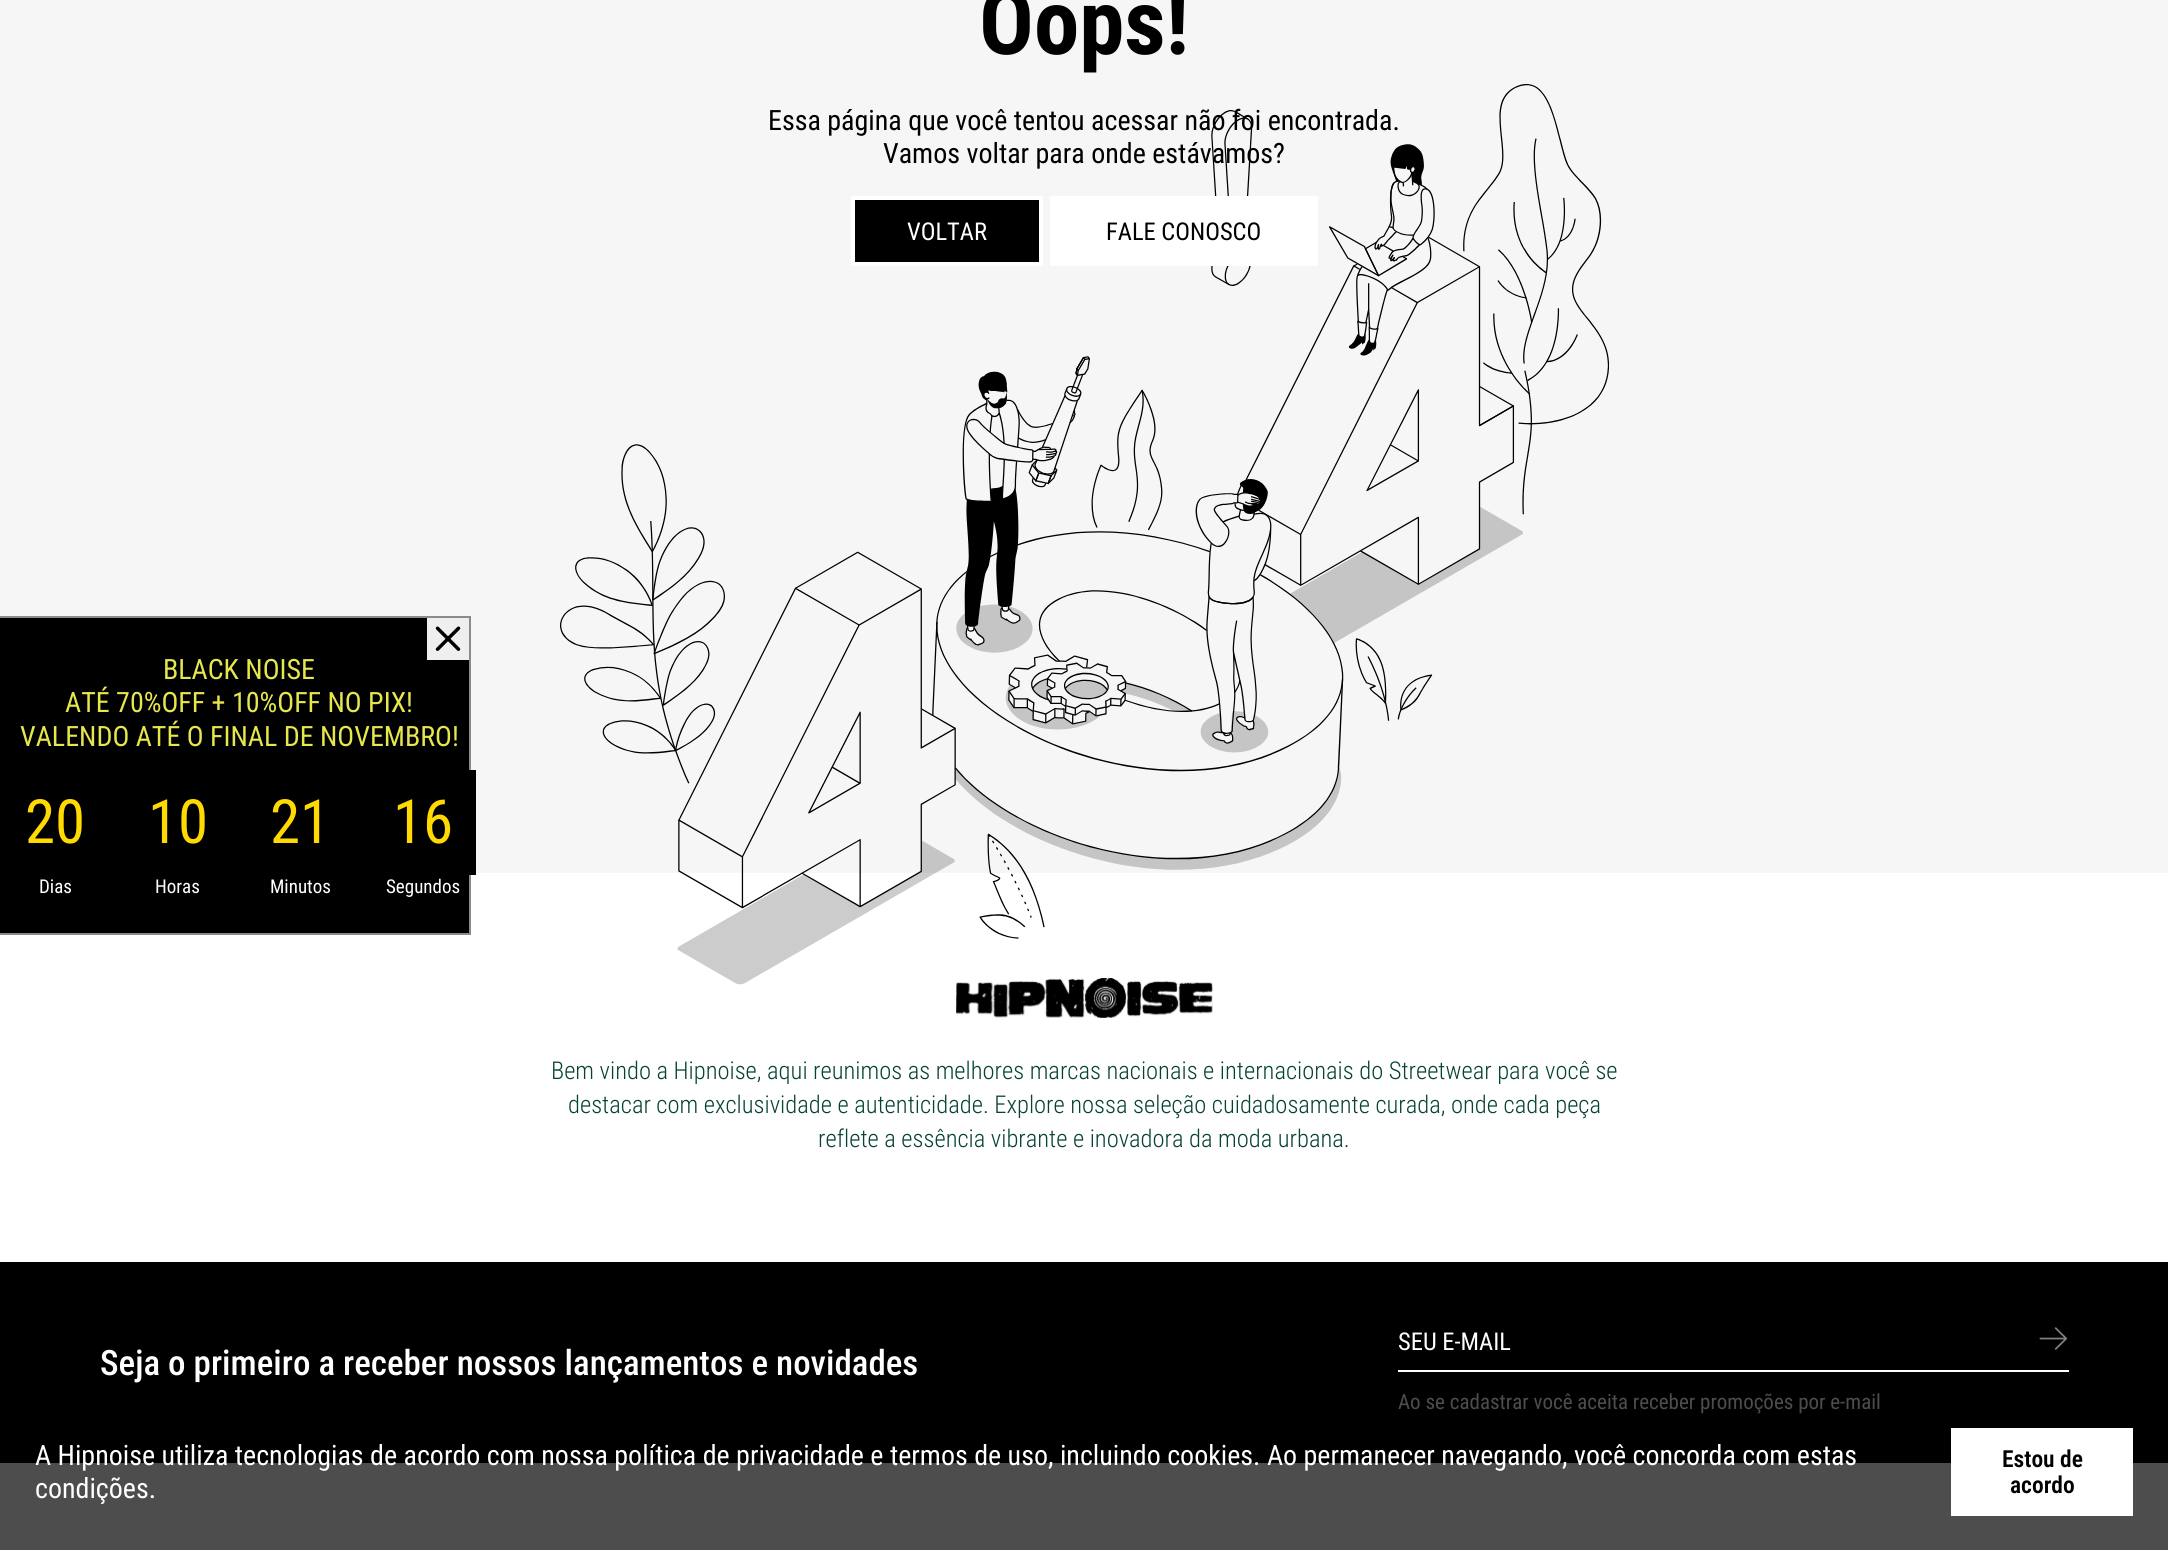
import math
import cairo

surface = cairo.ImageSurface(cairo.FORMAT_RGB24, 2168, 1550)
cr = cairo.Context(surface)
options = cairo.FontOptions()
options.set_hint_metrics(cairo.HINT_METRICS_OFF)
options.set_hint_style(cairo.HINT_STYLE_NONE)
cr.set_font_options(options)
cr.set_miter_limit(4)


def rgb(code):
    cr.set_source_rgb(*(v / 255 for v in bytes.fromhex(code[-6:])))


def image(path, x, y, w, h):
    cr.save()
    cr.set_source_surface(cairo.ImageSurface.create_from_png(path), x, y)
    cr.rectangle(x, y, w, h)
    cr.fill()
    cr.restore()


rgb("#ffffff")
cr.paint()
rgb("#4d4d4d")
cr.rectangle(0, 1463, 2168, 87)
cr.fill()
rgb("#f6f6f6")
cr.rectangle(0, 0, 2168, 873)
cr.fill()
rgb("#000000")
cr.rectangle(-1, 617, 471, 317)
cr.fill_preserve()
rgb("#8b8b8b")
cr.stroke()
rgb("#efefef")
cr.rectangle(427, 618, 42, 42)
cr.fill()
image("img/2.png", 435, 626, 26, 25)
for x, y, w, h, color in [
    (469, 770, 7, 105, "#000000"),
    (0, 1262, 2168, 201, "#000000"),
    (1398, 1370, 671, 2, "#ffffff"),
]:
    rgb(color)
    cr.rectangle(x, y, w, h)
    cr.fill()
image("img/4.png", 2039, 1327, 29, 23)
cr.rectangle(1951, 1428, 182, 88)
cr.fill()
cr.select_font_face("Roboto Condensed", cairo.FONT_SLANT_NORMAL, cairo.FONT_WEIGHT_BOLD)
cr.set_font_size(91)
rgb("#000000")
cr.move_to(979, 54)
cr.show_text("Oops!")
cr.select_font_face("Roboto Condensed")
cr.set_font_size(28)
cr.move_to(768, 130)
cr.show_text("Essa página que você tentou acessar não foi encontrada.")
cr.move_to(883, 163)
cr.show_text("Vamos voltar para onde estávamos?")
image("img/1.png", 560, 84, 1049, 901)
rgb("#ffffff")
cr.rectangle(1050, 196, 268, 70)
cr.fill()
cr.set_font_size(24.5)
rgb("#000000")
cr.move_to(1106, 240)
cr.show_text("FALE CONOSCO")
cr.rectangle(853, 198, 188, 66)
cr.fill_preserve()
rgb("#ffffff")
cr.set_line_width(4)
cr.stroke()
cr.move_to(907, 240)
cr.show_text("VOLTAR")
cr.set_font_size(28)
rgb("#e6e64d")
for x, y, s in [
    (163, 679, "BLACK NOISE"),
    (65, 712, "ATÉ 70%OFF + 10%OFF NO PIX!"),
    (20, 746, "VALENDO ATÉ O FINAL DE NOVEMBRO!"),
]:
    cr.move_to(x, y)
    cr.show_text(s)
cr.set_font_size(61)
rgb("#ffda01")
cr.move_to(25, 843)
cr.show_text("20")
cr.set_font_size(19)
rgb("#ffffff")
cr.move_to(39, 893)
cr.show_text("Dias")
cr.set_font_size(61)
rgb("#ffda01")
cr.move_to(148, 843)
cr.show_text("10")
cr.set_font_size(19)
rgb("#ffffff")
cr.move_to(155, 893)
cr.show_text("Horas")
cr.set_font_size(61)
rgb("#ffda01")
cr.move_to(270, 843)
cr.show_text("21")
cr.set_font_size(19)
rgb("#ffffff")
cr.move_to(270, 893)
cr.show_text("Minutos")
cr.set_font_size(61)
rgb("#ffda01")
cr.move_to(393, 843)
cr.show_text("16")
cr.set_font_size(19)
rgb("#ffffff")
cr.move_to(386, 893)
cr.show_text("Segundos")
image("img/3.png", 956, 978, 257, 40)
cr.select_font_face("Roboto Condensed Light")
cr.set_font_size(24.5)
rgb("#074236")
for x, y, s in [
    (551, 1079, "Bem vindo a Hipnoise, aqui reunimos as melhores marcas nacionais e internacionais do Streetwear para você se"),
    (568, 1113, "destacar com exclusividade e autenticidade. Explore nossa seleção cuidadosamente curada, onde cada peça"),
    (818, 1147, "reflete a essência vibrante e inovadora da moda urbana."),
]:
    cr.move_to(x, y)
    cr.show_text(s)
cr.select_font_face("Roboto Condensed Medium")
cr.set_font_size(35)
rgb("#ffffff")
cr.move_to(100, 1375)
cr.show_text("Seja o primeiro a receber nossos lançamentos e novidades")
cr.select_font_face("Roboto Condensed")
cr.set_font_size(24.5)
cr.move_to(1398, 1350)
cr.show_text("SEU E-MAIL")
cr.set_font_size(21)
rgb("#4d4d4d")
cr.move_to(1398, 1409)
cr.show_text("Ao se cadastrar você aceita receber promoções por e-mail")
cr.set_font_size(28)
rgb("#ffffff")
cr.move_to(35, 1465)
cr.show_text("A Hipnoise utiliza tecnologias de acordo com nossa política de privacidade e termos de uso, incluindo cookies. Ao permanecer navegando, você concorda com estas")
cr.move_to(35, 1498)
cr.show_text("condições.")
cr.select_font_face("Roboto Condensed SemiBold")
cr.set_font_size(23.5)
rgb("#000000")
cr.move_to(2002, 1467)
cr.show_text("Estou de")
cr.move_to(2010, 1493)
cr.show_text("acordo")
surface.write_to_png("page.png")
